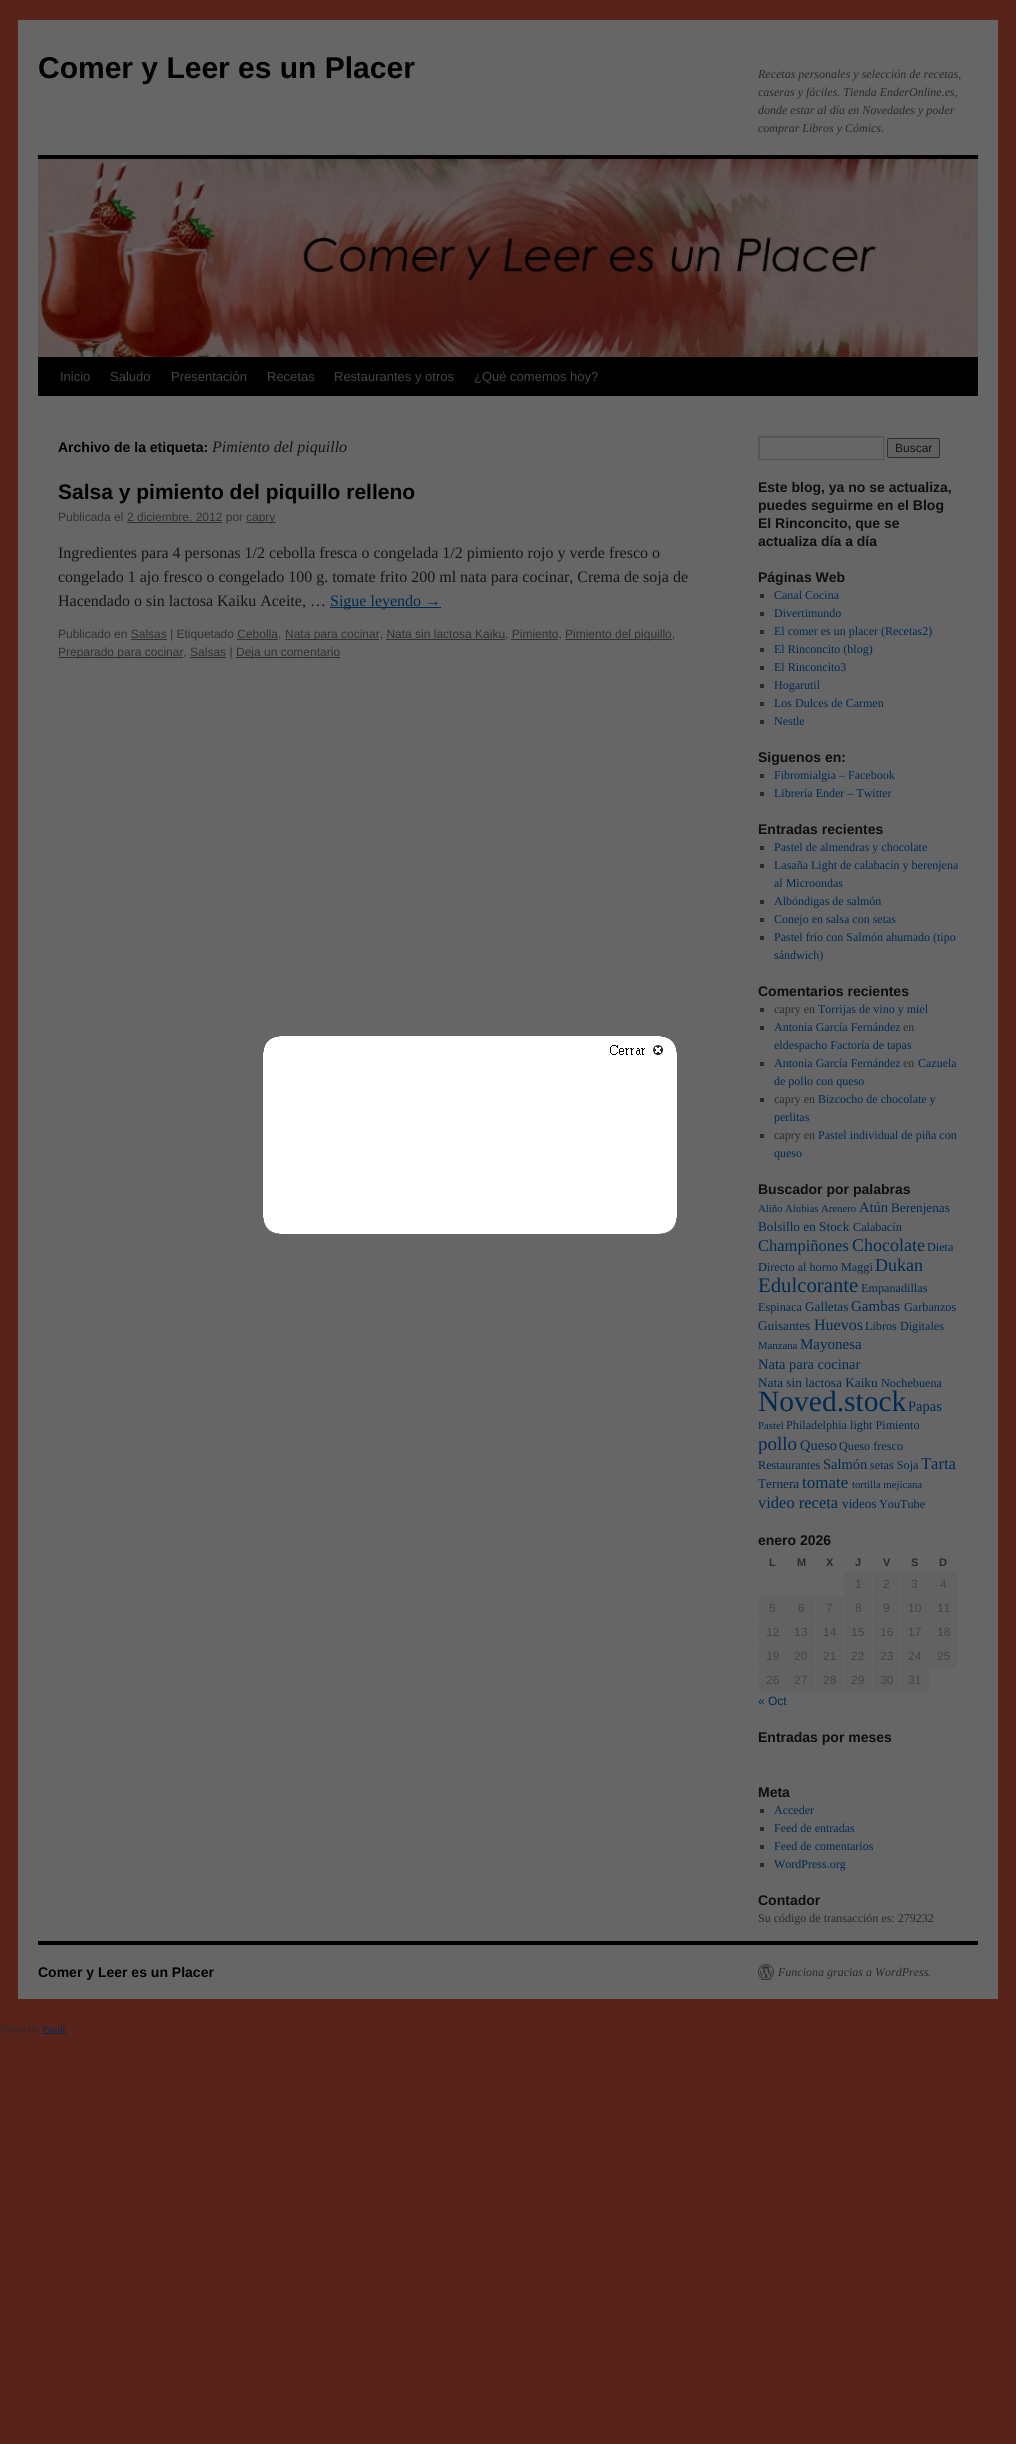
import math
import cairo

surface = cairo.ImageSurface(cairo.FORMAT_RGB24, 1016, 2444)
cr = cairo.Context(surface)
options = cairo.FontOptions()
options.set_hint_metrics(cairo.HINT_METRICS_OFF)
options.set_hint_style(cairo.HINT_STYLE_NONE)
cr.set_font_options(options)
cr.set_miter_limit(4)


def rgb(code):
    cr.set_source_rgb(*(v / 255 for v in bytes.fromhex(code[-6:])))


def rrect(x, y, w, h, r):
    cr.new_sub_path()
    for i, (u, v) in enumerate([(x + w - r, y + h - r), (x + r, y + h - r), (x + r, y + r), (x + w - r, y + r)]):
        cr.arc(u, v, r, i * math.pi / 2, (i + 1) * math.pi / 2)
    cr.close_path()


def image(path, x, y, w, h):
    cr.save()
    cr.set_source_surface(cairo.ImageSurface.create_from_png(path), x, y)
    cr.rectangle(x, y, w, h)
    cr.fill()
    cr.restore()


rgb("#58231b")
cr.paint()
for x, y, w, h, color in [
    (18, 20, 980, 1979, "#666666"),
    (38, 155, 940, 4, "#000000"),
    (38, 357, 940, 39, "#000000"),
]:
    rgb(color)
    cr.rectangle(x, y, w, h)
    cr.fill()
image("img/1.png", 38, 159, 940, 198)
for x, y, w, h, color in [
    (127, 522, 95, 1, "#303030"),
    (246, 522, 30, 1, "#303030"),
    (330, 607, 111, 1, "#002952"),
    (131, 639, 36, 1, "#303030"),
    (237, 639, 41, 1, "#303030"),
    (285, 639, 94, 1, "#303030"),
    (386, 639, 119, 1, "#303030"),
    (511, 639, 47, 1, "#303030"),
    (565, 639, 107, 1, "#303030"),
    (58, 657, 125, 1, "#303030"),
    (190, 657, 36, 1, "#303030"),
    (236, 657, 104, 1, "#303030"),
]:
    rgb(color)
    cr.rectangle(x, y, w, h)
    cr.fill()
cr.save()
cr.rectangle(759, 437, 124, 22)
cr.clip()
rgb("#5a5a5a")
cr.set_fill_rule(cairo.FILL_RULE_EVEN_ODD)
cr.new_path()
cr.move_to(660, 338)
cr.line_to(982, 338)
cr.line_to(982, 558)
cr.line_to(660, 558)
cr.close_path()
cr.move_to(760, 438)
cr.line_to(884, 438)
cr.line_to(884, 460)
cr.line_to(760, 460)
cr.close_path()
cr.fill()
cr.restore()
cr.rectangle(758.5, 436.5, 125, 23)
rgb("#525252")
cr.set_line_width(1)
cr.stroke()
rgb("#606060")
rrect(887.5, 438.5, 52, 19, 1.5)
cr.fill_preserve()
rgb("#2f2f2f")
cr.stroke()
for x, y, w, h, color in [
    (760, 594, 4, 4, "#292929"),
    (760, 612, 4, 4, "#292929"),
    (760, 630, 4, 4, "#292929"),
    (760, 648, 4, 4, "#292929"),
    (760, 666, 4, 4, "#292929"),
    (760, 684, 4, 4, "#292929"),
    (760, 702, 4, 4, "#292929"),
    (760, 720, 4, 4, "#292929"),
    (760, 774, 4, 4, "#292929"),
    (760, 792, 4, 4, "#292929"),
    (760, 846, 4, 4, "#292929"),
    (760, 864, 4, 4, "#292929"),
    (760, 900, 4, 4, "#292929"),
    (760, 918, 4, 4, "#292929"),
    (760, 936, 4, 4, "#292929"),
    (760, 1008, 4, 4, "#292929"),
    (760, 1026, 4, 4, "#292929"),
    (760, 1062, 4, 4, "#292929"),
    (760, 1098, 4, 4, "#292929"),
    (760, 1134, 4, 4, "#292929"),
    (844, 1572, 28, 23, "#626262"),
    (873, 1572, 27, 23, "#626262"),
    (901, 1572, 28, 23, "#626262"),
    (930, 1572, 27, 23, "#626262"),
    (759, 1596, 27, 23, "#626262"),
    (787, 1596, 28, 23, "#626262"),
    (816, 1596, 27, 23, "#626262"),
    (844, 1596, 28, 23, "#626262"),
    (873, 1596, 27, 23, "#626262"),
    (901, 1596, 28, 23, "#626262"),
    (930, 1596, 27, 23, "#626262"),
    (759, 1620, 27, 23, "#626262"),
    (787, 1620, 28, 23, "#626262"),
    (816, 1620, 27, 23, "#626262"),
    (844, 1620, 28, 23, "#626262"),
    (873, 1620, 27, 23, "#626262"),
    (901, 1620, 28, 23, "#626262"),
    (930, 1620, 27, 23, "#626262"),
    (759, 1644, 27, 23, "#626262"),
    (787, 1644, 28, 23, "#626262"),
    (816, 1644, 27, 23, "#626262"),
    (844, 1644, 28, 23, "#626262"),
    (873, 1644, 27, 23, "#626262"),
    (901, 1644, 28, 23, "#626262"),
    (930, 1644, 27, 23, "#626262"),
    (759, 1668, 27, 23, "#626262"),
    (787, 1668, 28, 23, "#626262"),
    (816, 1668, 27, 23, "#626262"),
    (844, 1668, 28, 23, "#626262"),
    (873, 1668, 27, 23, "#626262"),
    (901, 1668, 28, 23, "#626262"),
    (760, 1809, 4, 4, "#292929"),
    (760, 1827, 4, 4, "#292929"),
    (760, 1845, 4, 4, "#292929"),
    (760, 1863, 4, 4, "#292929"),
    (38, 1941, 940, 4, "#000000"),
]:
    rgb(color)
    cr.rectangle(x, y, w, h)
    cr.fill()
image("img/2.png", 758, 1964, 16, 16)
rgb("#ffffff")
cr.rectangle(270, 1043, 400, 185)
cr.fill()
image("img/3.png", 281, 1036, 396, 28)
image("img/4.png", 263, 1036, 18, 28)
image("img/5.png", 610, 1045, 53, 10)
cr.rectangle(263, 1064, 414, 150)
cr.fill()
image("img/6.png", 263, 1214, 396, 20)
image("img/7.png", 659, 1214, 18, 20)
rgb("#002952")
cr.rectangle(42, 2033, 24, 1)
cr.fill()
cr.select_font_face("Liberation Sans", cairo.FONT_SLANT_NORMAL, cairo.FONT_WEIGHT_BOLD)
cr.set_font_size(30)
rgb("#000000")
cr.move_to(38, 78)
cr.show_text("Comer y Leer es un Placer")
cr.select_font_face("Liberation Serif", cairo.FONT_SLANT_ITALIC)
cr.set_font_size(12)
rgb("#292929")
for x, y, s in [
    (758, 78, "Recetas personales y selección de recetas,"),
    (758, 96, "caseras y fáciles. Tienda EnderOnline.es,"),
    (758, 114, "donde estar al día en Novedades y poder"),
    (758, 132, "comprar Libros y Cómics."),
]:
    cr.move_to(x, y)
    cr.show_text(s)
cr.select_font_face("Liberation Sans")
cr.set_font_size(13)
rgb("#444444")
for x, y, s in [
    (60, 381, "Inicio"),
    (110, 381, "Saludo"),
    (171, 381, "Presentación"),
    (267, 381, "Recetas"),
    (334, 381, "Restaurantes y otros"),
    (474, 381, "¿Qué comemos hoy?"),
]:
    cr.move_to(x, y)
    cr.show_text(s)
cr.select_font_face("Liberation Sans", cairo.FONT_SLANT_NORMAL, cairo.FONT_WEIGHT_BOLD)
cr.set_font_size(14)
rgb("#000000")
cr.move_to(58, 452)
cr.show_text("Archivo de la etiqueta:")
cr.select_font_face("Liberation Serif", cairo.FONT_SLANT_ITALIC)
cr.set_font_size(16)
rgb("#141414")
cr.move_to(212, 452)
cr.show_text("Pimiento del piquillo")
cr.select_font_face("Liberation Sans", cairo.FONT_SLANT_NORMAL, cairo.FONT_WEIGHT_BOLD)
cr.set_font_size(21)
rgb("#000000")
cr.move_to(58, 499)
cr.show_text("Salsa y pimiento del piquillo relleno")
cr.select_font_face("Liberation Sans")
cr.set_font_size(12)
rgb("#303030")
for x, y, s in [
    (58, 521, "Publicada el"),
    (127, 521, "2 diciembre, 2012 por"),
    (246, 521, "capry"),
]:
    cr.move_to(x, y)
    cr.show_text(s)
cr.select_font_face("Liberation Serif")
cr.set_font_size(16)
rgb("#141414")
for x, y, s in [
    (58, 558, "Ingredientes para 4 personas 1/2 cebolla fresca o congelada 1/2 pimiento rojo y verde fresco o"),
    (58, 582, "congelado 1 ajo fresco o congelado 100 g. tomate frito 200 ml nata para cocinar, Crema de soja de"),
    (58, 606, "Hacendado o sin lactosa Kaiku Aceite, …"),
]:
    cr.move_to(x, y)
    cr.show_text(s)
rgb("#002952")
cr.move_to(330, 606)
cr.show_text("Sigue leyendo →")
cr.select_font_face("Liberation Sans")
cr.set_font_size(12)
rgb("#303030")
for x, y, s in [
    (58, 638, "Publicado en Salsas | Etiquetado Cebolla,"),
    (285, 638, "Nata para cocinar, Nata sin lactosa Kaiku, Pimiento,"),
    (565, 638, "Pimiento del piquillo,"),
    (58, 656, "Preparado para cocinar, Salsas |"),
    (236, 656, "Deja un comentario"),
]:
    cr.move_to(x, y)
    cr.show_text(s)
rgb("#141414")
cr.move_to(895, 452)
cr.show_text("Buscar")
cr.select_font_face("Liberation Sans", cairo.FONT_SLANT_NORMAL, cairo.FONT_WEIGHT_BOLD)
cr.set_font_size(14)
rgb("#0e0e0e")
for x, y, s in [
    (758, 492, "Este blog, ya no se actualiza,"),
    (758, 510, "puedes seguirme en el Blog"),
    (758, 528, "El Rinconcito, que se"),
    (758, 546, "actualiza día a día"),
    (758, 582, "Páginas Web"),
]:
    cr.move_to(x, y)
    cr.show_text(s)
cr.select_font_face("Liberation Serif")
cr.set_font_size(12)
rgb("#002952")
for x, y, s in [
    (774, 599, "Canal Cocina"),
    (774, 617, "Divertimundo"),
    (774, 635, "El comer es un placer (Recetas2)"),
    (774, 653, "El Rinconcito (blog)"),
    (774, 671, "El Rinconcito3"),
    (774, 689, "Hogarutil"),
    (774, 707, "Los Dulces de Carmen"),
    (774, 725, "Nestle"),
]:
    cr.move_to(x, y)
    cr.show_text(s)
cr.select_font_face("Liberation Sans", cairo.FONT_SLANT_NORMAL, cairo.FONT_WEIGHT_BOLD)
cr.set_font_size(14)
rgb("#0e0e0e")
cr.move_to(758, 762)
cr.show_text("Siguenos en:")
cr.select_font_face("Liberation Serif")
cr.set_font_size(12)
rgb("#002952")
cr.move_to(774, 779)
cr.show_text("Fibromialgia – Facebook")
cr.move_to(774, 797)
cr.show_text("Librería Ender – Twitter")
cr.select_font_face("Liberation Sans", cairo.FONT_SLANT_NORMAL, cairo.FONT_WEIGHT_BOLD)
cr.set_font_size(14)
rgb("#0e0e0e")
cr.move_to(758, 834)
cr.show_text("Entradas recientes")
cr.select_font_face("Liberation Serif")
cr.set_font_size(12)
rgb("#002952")
for x, y, s in [
    (774, 851, "Pastel de almendras y chocolate"),
    (774, 869, "Lasaña Light de calabacín y berenjena"),
    (774, 887, "al Microondas"),
    (774, 905, "Albóndigas de salmón"),
    (774, 923, "Conejo en salsa con setas"),
    (774, 941, "Pastel frío con Salmón ahumado (tipo"),
    (774, 959, "sándwich)"),
]:
    cr.move_to(x, y)
    cr.show_text(s)
cr.select_font_face("Liberation Sans", cairo.FONT_SLANT_NORMAL, cairo.FONT_WEIGHT_BOLD)
cr.set_font_size(14)
rgb("#0e0e0e")
cr.move_to(758, 996)
cr.show_text("Comentarios recientes")
cr.select_font_face("Liberation Serif")
cr.set_font_size(12)
rgb("#292929")
cr.move_to(774, 1013)
cr.show_text("capry en")
rgb("#002952")
cr.move_to(818, 1013)
cr.show_text("Torrijas de vino y miel")
cr.move_to(774, 1031)
cr.show_text("Antonia García Fernández")
rgb("#292929")
cr.move_to(903, 1031)
cr.show_text("en")
rgb("#002952")
cr.move_to(774, 1049)
cr.show_text("eldespacho Factoría de tapas")
cr.move_to(774, 1067)
cr.show_text("Antonia García Fernández")
rgb("#292929")
cr.move_to(903, 1067)
cr.show_text("en")
rgb("#002952")
cr.move_to(918, 1067)
cr.show_text("Cazuela")
cr.move_to(774, 1085)
cr.show_text("de pollo con queso")
rgb("#292929")
cr.move_to(774, 1103)
cr.show_text("capry en")
rgb("#002952")
cr.move_to(818, 1103)
cr.show_text("Bizcocho de chocolate y")
cr.move_to(774, 1121)
cr.show_text("perlitas")
rgb("#292929")
cr.move_to(774, 1139)
cr.show_text("capry en")
rgb("#002952")
cr.move_to(818, 1139)
cr.show_text("Pastel individual de piña con")
cr.move_to(774, 1157)
cr.show_text("queso")
cr.select_font_face("Liberation Sans", cairo.FONT_SLANT_NORMAL, cairo.FONT_WEIGHT_BOLD)
cr.set_font_size(14)
rgb("#0e0e0e")
cr.move_to(758, 1194)
cr.show_text("Buscador por palabras")
cr.select_font_face("Liberation Serif")
cr.set_font_size(10.75)
rgb("#002952")
for x, y, s in [
    (758, 1212, "Aliño"),
    (785, 1212, "Alubias"),
    (821, 1212, "Arenero"),
]:
    cr.move_to(x, y)
    cr.show_text(s)
cr.set_font_size(14.5)
cr.move_to(859, 1212)
cr.show_text("Atún")
cr.set_font_size(13.25)
cr.move_to(891, 1212)
cr.show_text("Berenjenas")
cr.move_to(758, 1231)
cr.show_text("Bolsillo en Stock")
cr.set_font_size(12.2)
cr.move_to(853, 1231)
cr.show_text("Calabacín")
cr.set_font_size(16.5)
cr.move_to(758, 1251)
cr.show_text("Champiñones")
cr.set_font_size(18)
cr.move_to(852, 1251)
cr.show_text("Chocolate")
cr.set_font_size(12.2)
cr.move_to(927, 1251)
cr.show_text("Dieta")
cr.move_to(758, 1271)
cr.show_text("Directo al horno Maggi")
cr.set_font_size(18)
cr.move_to(875, 1271)
cr.show_text("Dukan")
cr.set_font_size(20.75)
cr.move_to(758, 1292)
cr.show_text("Edulcorante")
cr.set_font_size(12.2)
cr.move_to(861, 1292)
cr.show_text("Empanadillas")
cr.move_to(758, 1311)
cr.show_text("Espinaca")
cr.set_font_size(13.25)
cr.move_to(805, 1311)
cr.show_text("Galletas")
cr.set_font_size(15)
cr.move_to(851, 1311)
cr.show_text("Gambas")
cr.set_font_size(12.2)
cr.move_to(904, 1311)
cr.show_text("Garbanzos")
cr.set_font_size(13.25)
cr.move_to(758, 1330)
cr.show_text("Guisantes")
cr.set_font_size(16)
cr.move_to(814, 1330)
cr.show_text("Huevos")
cr.set_font_size(12.2)
cr.move_to(865, 1330)
cr.show_text("Libros Digitales")
cr.set_font_size(10.75)
cr.move_to(758, 1349)
cr.show_text("Manzana")
cr.set_font_size(15)
cr.move_to(800, 1349)
cr.show_text("Mayonesa")
cr.set_font_size(14.5)
cr.move_to(758, 1369)
cr.show_text("Nata para cocinar")
cr.set_font_size(13.25)
cr.move_to(758, 1387)
cr.show_text("Nata sin lactosa Kaiku")
cr.set_font_size(12.2)
cr.move_to(881, 1387)
cr.show_text("Nochebuena")
cr.set_font_size(29.5)
cr.move_to(758, 1411)
cr.show_text("Noved.stock")
cr.set_font_size(14.5)
cr.move_to(908, 1411)
cr.show_text("Papas")
cr.set_font_size(10.75)
cr.move_to(758, 1429)
cr.show_text("Pastel")
cr.set_font_size(12.2)
cr.move_to(786, 1429)
cr.show_text("Philadelphia light Pimiento")
cr.set_font_size(19)
cr.move_to(758, 1450)
cr.show_text("pollo")
cr.set_font_size(14.5)
cr.move_to(800, 1450)
cr.show_text("Queso")
cr.set_font_size(12.2)
cr.move_to(839, 1450)
cr.show_text("Queso fresco")
cr.move_to(758, 1469)
cr.show_text("Restaurantes")
cr.set_font_size(14.5)
cr.move_to(823, 1469)
cr.show_text("Salmón")
cr.set_font_size(12.2)
cr.move_to(870, 1469)
cr.show_text("setas Soja")
cr.set_font_size(16.5)
cr.move_to(921, 1469)
cr.show_text("Tarta")
cr.set_font_size(13.25)
cr.move_to(758, 1488)
cr.show_text("Ternera")
cr.set_font_size(17)
cr.move_to(802, 1488)
cr.show_text("tomate")
cr.set_font_size(10.75)
cr.move_to(852, 1488)
cr.show_text("tortilla mejicana")
cr.set_font_size(16.5)
cr.move_to(758, 1508)
cr.show_text("video receta")
cr.set_font_size(13.25)
cr.move_to(842, 1508)
cr.show_text("videos")
cr.set_font_size(12.2)
cr.move_to(879, 1508)
cr.show_text("YouTube")
cr.select_font_face("Liberation Sans", cairo.FONT_SLANT_NORMAL, cairo.FONT_WEIGHT_BOLD)
cr.set_font_size(14)
rgb("#0e0e0e")
cr.move_to(758, 1545)
cr.show_text("enero 2026")
cr.set_font_size(11)
rgb("#292929")
for x, y, s in [
    (769, 1566, "L"),
    (797, 1566, "M"),
    (826, 1566, "X"),
    (855, 1566, "J"),
    (883, 1566, "V"),
    (911, 1566, "S"),
    (939, 1566, "D"),
]:
    cr.move_to(x, y)
    cr.show_text(s)
cr.select_font_face("Liberation Sans")
cr.set_font_size(12)
rgb("#444444")
for x, y, s in [
    (855, 1588, "1"),
    (883, 1588, "2"),
    (911, 1588, "3"),
    (940, 1588, "4"),
    (769, 1612, "5"),
    (798, 1612, "6"),
    (826, 1612, "7"),
    (855, 1612, "8"),
    (883, 1612, "9"),
    (908, 1612, "10"),
    (937, 1612, "11"),
    (766, 1636, "12"),
    (794, 1636, "13"),
    (823, 1636, "14"),
    (851, 1636, "15"),
    (880, 1636, "16"),
    (908, 1636, "17"),
    (937, 1636, "18"),
    (766, 1660, "19"),
    (794, 1660, "20"),
    (823, 1660, "21"),
    (851, 1660, "22"),
    (880, 1660, "23"),
    (908, 1660, "24"),
    (937, 1660, "25"),
    (766, 1684, "26"),
    (794, 1684, "27"),
    (823, 1684, "28"),
    (851, 1684, "29"),
    (880, 1684, "30"),
    (908, 1684, "31"),
]:
    cr.move_to(x, y)
    cr.show_text(s)
rgb("#002952")
cr.move_to(758, 1705)
cr.show_text("« Oct")
cr.select_font_face("Liberation Sans", cairo.FONT_SLANT_NORMAL, cairo.FONT_WEIGHT_BOLD)
cr.set_font_size(14)
rgb("#0e0e0e")
cr.move_to(758, 1742)
cr.show_text("Entradas por meses")
cr.move_to(758, 1797)
cr.show_text("Meta")
cr.select_font_face("Liberation Serif")
cr.set_font_size(12)
rgb("#002952")
for x, y, s in [
    (774, 1814, "Acceder"),
    (774, 1832, "Feed de entradas"),
    (774, 1850, "Feed de comentarios"),
    (774, 1868, "WordPress.org"),
]:
    cr.move_to(x, y)
    cr.show_text(s)
cr.select_font_face("Liberation Sans", cairo.FONT_SLANT_NORMAL, cairo.FONT_WEIGHT_BOLD)
cr.set_font_size(14)
rgb("#0e0e0e")
cr.move_to(758, 1905)
cr.show_text("Contador")
cr.select_font_face("Liberation Serif")
cr.set_font_size(12)
rgb("#292929")
cr.move_to(758, 1922)
cr.show_text("Su código de transacción es: 279232")
cr.select_font_face("Liberation Sans", cairo.FONT_SLANT_NORMAL, cairo.FONT_WEIGHT_BOLD)
cr.set_font_size(14)
rgb("#000000")
cr.move_to(38, 1977)
cr.show_text("Comer y Leer es un Placer")
cr.select_font_face("Liberation Serif", cairo.FONT_SLANT_ITALIC)
cr.set_font_size(12)
rgb("#292929")
cr.move_to(778, 1976)
cr.show_text("Funciona gracias a WordPress.")
cr.select_font_face("Liberation Serif")
cr.set_font_size(10)
cr.move_to(0, 2032)
cr.show_text("Popup By")
rgb("#002952")
cr.move_to(42, 2032)
cr.show_text("Puydi")
surface.write_to_png("page.png")
